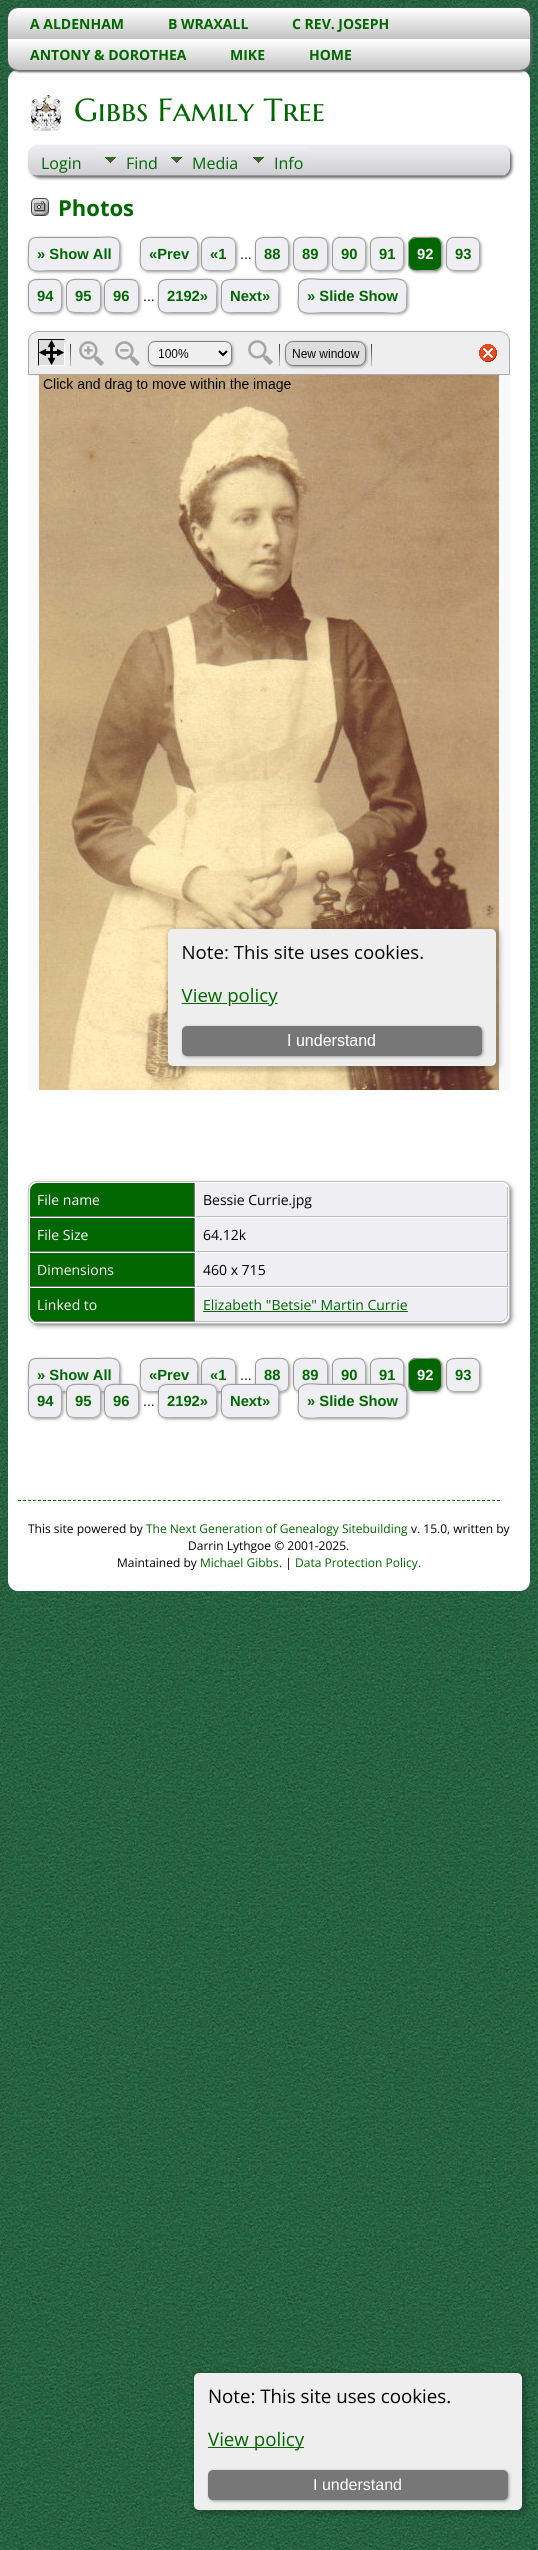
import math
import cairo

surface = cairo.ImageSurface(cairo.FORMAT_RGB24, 538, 2550)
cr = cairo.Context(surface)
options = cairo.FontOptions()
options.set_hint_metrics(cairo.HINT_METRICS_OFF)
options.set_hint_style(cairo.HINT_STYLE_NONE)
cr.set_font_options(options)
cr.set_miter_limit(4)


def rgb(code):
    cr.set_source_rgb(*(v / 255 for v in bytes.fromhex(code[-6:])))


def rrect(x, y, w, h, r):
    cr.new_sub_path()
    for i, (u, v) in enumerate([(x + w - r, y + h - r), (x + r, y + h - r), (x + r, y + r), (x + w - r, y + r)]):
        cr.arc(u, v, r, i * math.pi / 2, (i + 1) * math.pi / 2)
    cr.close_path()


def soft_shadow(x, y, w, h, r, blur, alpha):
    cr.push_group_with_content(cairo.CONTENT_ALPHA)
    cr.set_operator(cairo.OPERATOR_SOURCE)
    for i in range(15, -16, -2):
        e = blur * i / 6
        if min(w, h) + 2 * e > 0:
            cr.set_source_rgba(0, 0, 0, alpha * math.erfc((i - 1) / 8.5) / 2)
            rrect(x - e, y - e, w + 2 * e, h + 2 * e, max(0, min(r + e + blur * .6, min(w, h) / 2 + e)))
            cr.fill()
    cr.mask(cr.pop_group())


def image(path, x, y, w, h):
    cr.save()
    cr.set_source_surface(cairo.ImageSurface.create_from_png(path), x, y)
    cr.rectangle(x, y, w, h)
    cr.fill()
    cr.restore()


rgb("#ffffff")
cr.paint()
image("img/1.png", 0, 0, 538, 2550)
rgb("#ffffff")
rrect(8, 70, 522, 1521, 10)
cr.fill()
rgb("#666666")
soft_shadow(8, 8, 524, 64, 11, 1, 1)
image("img/2.png", 8, 8, 522, 62)
image("img/3.png", 31, 95, 30, 36)
soft_shadow(30, 147, 482, 31, 10, 1.5, 1)
rgb("#eeeef3")
rrect(28, 145, 482, 31, 10)
cr.fill()
cr.save()
rrect(28, 145, 482, 31, 10)
cr.clip()
gradient = cairo.LinearGradient(269, 145, 269, 175)
gradient.add_color_stop_rgba(0, 0.933, 0.933, 0.953, 1)
gradient.add_color_stop_rgba(1, 0.808, 0.808, 0.827, 1)
cr.set_source(gradient)
cr.new_path()
cr.move_to(38, 145)
cr.line_to(500, 145)
cr.curve_to(505.5, 145, 510, 149.5, 510, 155)
cr.line_to(510, 175)
cr.line_to(28, 175)
cr.line_to(28, 155)
cr.curve_to(28, 149.5, 32.5, 145, 38, 145)
cr.close_path()
cr.fill()
cr.restore()
rgb("#999999")
cr.rectangle(33, 175, 472, 1)
cr.fill()
rgb("#eeeef3")
cr.rectangle(96, 147, 212, 2)
cr.fill()
image("img/4.png", 96, 149, 66, 26)
image("img/5.png", 162, 149, 82, 26)
image("img/6.png", 244, 149, 64, 26)
image("img/7.png", 31, 198, 18, 18)
rgb("#999999")
soft_shadow(29, 238, 92, 34, 8, 1.5, 1)
rgb("#eeeef3")
rrect(28, 237, 92, 34, 8)
cr.fill()
cr.new_path()
cr.move_to(117.5, 239.5)
cr.curve_to(121, 243.5, 119.5, 249.5, 119.5, 254)
cr.curve_to(119.5, 272.5, 118.5, 270.5, 99.5, 270.5)
cr.line_to(48.5, 270.5)
cr.curve_to(45, 270.5, 35, 272.5, 30.5, 268.5)
rgb("#aaaaaa")
cr.set_line_width(1)
cr.stroke()
cr.new_path()
cr.move_to(30.5, 268.5)
cr.curve_to(27, 264.5, 28.5, 258.5, 28.5, 254)
cr.curve_to(28.5, 235.5, 29.5, 237.5, 48.5, 237.5)
cr.line_to(99.5, 237.5)
cr.curve_to(103, 237.5, 113, 235.5, 117.5, 239.5)
rgb("#999999")
cr.stroke()
rgb("#999999")
soft_shadow(141, 238, 58, 34, 8, 1.5, 1)
rgb("#eeeef3")
rrect(140, 237, 58, 34, 8)
cr.fill()
cr.new_path()
cr.move_to(195.5, 239.5)
cr.curve_to(199, 243.5, 197.5, 249.5, 197.5, 254)
cr.line_to(197.5, 264.5)
cr.curve_to(196, 271.5, 188.5, 270.5, 183, 270.5)
cr.line_to(155, 270.5)
cr.curve_to(151, 270.5, 146, 271.5, 142.5, 268.5)
rgb("#aaaaaa")
cr.stroke()
cr.new_path()
cr.move_to(142.5, 268.5)
cr.curve_to(139, 264.5, 140.5, 258.5, 140.5, 254)
cr.line_to(140.5, 243.5)
cr.curve_to(142, 236.5, 149.5, 237.5, 155, 237.5)
cr.line_to(183, 237.5)
cr.curve_to(187, 237.5, 192, 236.5, 195.5, 239.5)
rgb("#999999")
cr.stroke()
rgb("#999999")
soft_shadow(202, 238, 35, 34, 8, 1.5, 1)
rgb("#eeeef3")
rrect(201, 237, 35, 34, 8)
cr.fill()
cr.new_path()
cr.move_to(233.5, 239.5)
cr.curve_to(235.5, 242, 235.5, 245, 235.5, 248)
cr.line_to(235.5, 263.5)
cr.curve_to(234.5, 272.5, 224.5, 270.5, 218.5, 270.5)
cr.line_to(212, 270.5)
cr.curve_to(209, 270.5, 206, 270.5, 203.5, 268.5)
rgb("#aaaaaa")
cr.stroke()
cr.new_path()
cr.move_to(203.5, 268.5)
cr.curve_to(201.5, 266, 201.5, 263, 201.5, 260)
cr.line_to(201.5, 244.5)
cr.curve_to(202.5, 235.5, 212.5, 237.5, 218.5, 237.5)
cr.line_to(225, 237.5)
cr.curve_to(228, 237.5, 231, 237.5, 233.5, 239.5)
rgb("#999999")
cr.stroke()
rgb("#999999")
soft_shadow(256, 238, 34, 34, 8, 1.5, 1)
rgb("#eeeef3")
rrect(255, 237, 34, 34, 8)
cr.fill()
cr.new_path()
cr.move_to(286.5, 239.5)
cr.curve_to(288.5, 242, 288.5, 245, 288.5, 248)
cr.line_to(288.5, 264.5)
cr.curve_to(287.5, 270, 282.5, 270.5, 278, 270.5)
cr.line_to(269, 270.5)
cr.curve_to(265, 270.5, 260.5, 271.5, 257.5, 268.5)
rgb("#aaaaaa")
cr.stroke()
cr.new_path()
cr.move_to(257.5, 268.5)
cr.curve_to(255.5, 266, 255.5, 263, 255.5, 260)
cr.line_to(255.5, 243.5)
cr.curve_to(256.5, 238, 261.5, 237.5, 266, 237.5)
cr.line_to(275, 237.5)
cr.curve_to(279, 237.5, 283.5, 236.5, 286.5, 239.5)
rgb("#999999")
cr.stroke()
rgb("#999999")
soft_shadow(294, 238, 35, 34, 8, 1.5, 1)
rgb("#eeeef3")
rrect(293, 237, 35, 34, 8)
cr.fill()
cr.new_path()
cr.move_to(325.5, 239.5)
cr.curve_to(327.5, 242, 327.5, 245, 327.5, 248)
cr.line_to(327.5, 263.5)
cr.curve_to(326.5, 272.5, 316.5, 270.5, 310.5, 270.5)
cr.line_to(304, 270.5)
cr.curve_to(301, 270.5, 298, 270.5, 295.5, 268.5)
rgb("#aaaaaa")
cr.stroke()
cr.new_path()
cr.move_to(295.5, 268.5)
cr.curve_to(293.5, 266, 293.5, 263, 293.5, 260)
cr.line_to(293.5, 244.5)
cr.curve_to(294.5, 235.5, 304.5, 237.5, 310.5, 237.5)
cr.line_to(317, 237.5)
cr.curve_to(320, 237.5, 323, 237.5, 325.5, 239.5)
rgb("#999999")
cr.stroke()
rgb("#999999")
soft_shadow(333, 238, 34, 34, 8, 1.5, 1)
rgb("#eeeef3")
rrect(332, 237, 34, 34, 8)
cr.fill()
cr.new_path()
cr.move_to(363.5, 239.5)
cr.curve_to(366.5, 242.5, 365.5, 247, 365.5, 251)
cr.line_to(365.5, 260)
cr.curve_to(365.5, 264.5, 365, 269.5, 359.5, 270.5)
cr.line_to(343, 270.5)
cr.curve_to(340, 270.5, 337, 270.5, 334.5, 268.5)
rgb("#aaaaaa")
cr.stroke()
cr.new_path()
cr.move_to(334.5, 268.5)
cr.curve_to(331.5, 265.5, 332.5, 261, 332.5, 257)
cr.line_to(332.5, 248)
cr.curve_to(332.5, 243.5, 333, 238.5, 338.5, 237.5)
cr.line_to(355, 237.5)
cr.curve_to(358, 237.5, 361, 237.5, 363.5, 239.5)
rgb("#999999")
cr.stroke()
rgb("#999999")
soft_shadow(371, 238, 34, 34, 8, 1.5, 1)
rgb("#eeeef3")
rrect(370, 237, 34, 34, 8)
cr.fill()
cr.new_path()
cr.move_to(401.5, 239.5)
cr.curve_to(404.5, 242.5, 403.5, 247, 403.5, 251)
cr.line_to(403.5, 260)
cr.curve_to(403.5, 264.5, 403, 269.5, 397.5, 270.5)
cr.line_to(381, 270.5)
cr.curve_to(378, 270.5, 375, 270.5, 372.5, 268.5)
rgb("#aaaaaa")
cr.stroke()
cr.new_path()
cr.move_to(372.5, 268.5)
cr.curve_to(370.5, 266, 370.5, 263, 370.5, 260)
cr.line_to(370.5, 243.5)
cr.curve_to(371.5, 238, 376.5, 237.5, 381, 237.5)
cr.line_to(390, 237.5)
cr.curve_to(394, 237.5, 398.5, 236.5, 401.5, 239.5)
rgb("#999999")
cr.stroke()
rgb("#999999")
soft_shadow(409, 238, 34, 34, 8, 1.5, 1)
rgb("#006600")
rrect(408, 237, 34, 34, 8)
cr.fill()
cr.new_path()
cr.move_to(439.5, 239.5)
cr.curve_to(441.5, 242, 441.5, 245, 441.5, 248)
cr.line_to(441.5, 264.5)
cr.curve_to(440.5, 270, 435.5, 270.5, 431, 270.5)
cr.line_to(422, 270.5)
cr.curve_to(418, 270.5, 413.5, 271.5, 410.5, 268.5)
rgb("#aaaaaa")
cr.stroke()
cr.new_path()
cr.move_to(410.5, 268.5)
cr.curve_to(408.5, 266, 408.5, 263, 408.5, 260)
cr.line_to(408.5, 243.5)
cr.curve_to(409.5, 238, 414.5, 237.5, 419, 237.5)
cr.line_to(428, 237.5)
cr.curve_to(432, 237.5, 436.5, 236.5, 439.5, 239.5)
rgb("#999999")
cr.stroke()
rgb("#999999")
soft_shadow(447, 238, 34, 34, 8, 1.5, 1)
rgb("#eeeef3")
rrect(446, 237, 34, 34, 8)
cr.fill()
cr.new_path()
cr.move_to(477.5, 239.5)
cr.curve_to(480.5, 242.5, 479.5, 247, 479.5, 251)
cr.line_to(479.5, 260)
cr.curve_to(479.5, 264.5, 479, 269.5, 473.5, 270.5)
cr.line_to(457, 270.5)
cr.curve_to(454, 270.5, 451, 270.5, 448.5, 268.5)
rgb("#aaaaaa")
cr.stroke()
cr.new_path()
cr.move_to(448.5, 268.5)
cr.curve_to(445.5, 265.5, 446.5, 261, 446.5, 257)
cr.line_to(446.5, 248)
cr.curve_to(446.5, 243.5, 447, 238.5, 452.5, 237.5)
cr.line_to(469, 237.5)
cr.curve_to(472, 237.5, 475, 237.5, 477.5, 239.5)
rgb("#999999")
cr.stroke()
rgb("#999999")
soft_shadow(29, 280, 34, 34, 8, 1.5, 1)
rgb("#eeeef3")
rrect(28, 279, 34, 34, 8)
cr.fill()
cr.new_path()
cr.move_to(59.5, 281.5)
cr.curve_to(61.5, 284, 61.5, 287, 61.5, 290)
cr.line_to(61.5, 306.5)
cr.curve_to(60.5, 312, 55.5, 312.5, 51, 312.5)
cr.line_to(42, 312.5)
cr.curve_to(38, 312.5, 33.5, 313.5, 30.5, 310.5)
rgb("#aaaaaa")
cr.stroke()
cr.new_path()
cr.move_to(30.5, 310.5)
cr.curve_to(28.5, 308, 28.5, 305, 28.5, 302)
cr.line_to(28.5, 285.5)
cr.curve_to(29.5, 280, 34.5, 279.5, 39, 279.5)
cr.line_to(48, 279.5)
cr.curve_to(52, 279.5, 56.5, 278.5, 59.5, 281.5)
rgb("#999999")
cr.stroke()
rgb("#999999")
soft_shadow(67, 280, 35, 34, 8, 1.5, 1)
rgb("#eeeef3")
rrect(66, 279, 35, 34, 8)
cr.fill()
cr.new_path()
cr.move_to(98.5, 281.5)
cr.curve_to(100.5, 284, 100.5, 287, 100.5, 290)
cr.line_to(100.5, 305.5)
cr.curve_to(99.5, 314.5, 89.5, 312.5, 83.5, 312.5)
cr.line_to(77, 312.5)
cr.curve_to(74, 312.5, 71, 312.5, 68.5, 310.5)
rgb("#aaaaaa")
cr.stroke()
cr.new_path()
cr.move_to(68.5, 310.5)
cr.curve_to(66.5, 308, 66.5, 305, 66.5, 302)
cr.line_to(66.5, 286.5)
cr.curve_to(67.5, 277.5, 77.5, 279.5, 83.5, 279.5)
cr.line_to(90, 279.5)
cr.curve_to(93, 279.5, 96, 279.5, 98.5, 281.5)
rgb("#999999")
cr.stroke()
rgb("#999999")
soft_shadow(105, 280, 35, 34, 8, 1.5, 1)
rgb("#eeeef3")
rrect(104, 279, 35, 34, 8)
cr.fill()
cr.new_path()
cr.move_to(136.5, 281.5)
cr.curve_to(138.5, 284, 138.5, 287, 138.5, 290)
cr.line_to(138.5, 305.5)
cr.curve_to(137.5, 314.5, 127.5, 312.5, 121.5, 312.5)
cr.line_to(115, 312.5)
cr.curve_to(112, 312.5, 109, 312.5, 106.5, 310.5)
rgb("#aaaaaa")
cr.stroke()
cr.new_path()
cr.move_to(106.5, 310.5)
cr.curve_to(104.5, 308, 104.5, 305, 104.5, 302)
cr.line_to(104.5, 286.5)
cr.curve_to(105.5, 277.5, 115.5, 279.5, 121.5, 279.5)
cr.line_to(128, 279.5)
cr.curve_to(131, 279.5, 134, 279.5, 136.5, 281.5)
rgb("#999999")
cr.stroke()
rgb("#999999")
soft_shadow(159, 280, 59, 34, 8, 1.5, 1)
rgb("#eeeef3")
rrect(158, 279, 59, 34, 8)
cr.fill()
cr.new_path()
cr.move_to(214.5, 281.5)
cr.curve_to(218, 285.5, 216.5, 291.5, 216.5, 296)
cr.line_to(216.5, 306.5)
cr.curve_to(215, 313.5, 207, 312.5, 202, 312.5)
cr.line_to(173, 312.5)
cr.curve_to(169, 312.5, 164, 313.5, 160.5, 310.5)
rgb("#aaaaaa")
cr.stroke()
cr.new_path()
cr.move_to(160.5, 310.5)
cr.curve_to(157, 306.5, 158.5, 300.5, 158.5, 296)
cr.line_to(158.5, 285.5)
cr.curve_to(160, 278.5, 168, 279.5, 173, 279.5)
cr.line_to(202, 279.5)
cr.curve_to(206, 279.5, 211, 278.5, 214.5, 281.5)
rgb("#999999")
cr.stroke()
rgb("#999999")
soft_shadow(222, 280, 58, 34, 8, 1.5, 1)
rgb("#eeeef3")
rrect(221, 279, 58, 34, 8)
cr.fill()
cr.new_path()
cr.move_to(276.5, 281.5)
cr.curve_to(280, 285.5, 278.5, 291.5, 278.5, 296)
cr.line_to(278.5, 306.5)
cr.curve_to(277, 313.5, 269.5, 312.5, 264, 312.5)
cr.line_to(236, 312.5)
cr.curve_to(232, 312.5, 227, 313.5, 223.5, 310.5)
rgb("#aaaaaa")
cr.stroke()
cr.new_path()
cr.move_to(223.5, 310.5)
cr.curve_to(220, 306.5, 221.5, 300.5, 221.5, 296)
cr.line_to(221.5, 285.5)
cr.curve_to(223, 278.5, 230.5, 279.5, 236, 279.5)
cr.line_to(264, 279.5)
cr.curve_to(268, 279.5, 273, 278.5, 276.5, 281.5)
rgb("#999999")
cr.stroke()
rgb("#999999")
soft_shadow(299, 280, 109, 34, 8, 1.5, 1)
rgb("#eeeef3")
rrect(298, 279, 109, 34, 8)
cr.fill()
cr.new_path()
cr.move_to(404.5, 281.5)
cr.curve_to(408, 285.5, 406.5, 291.5, 406.5, 296)
cr.line_to(406.5, 306.5)
cr.curve_to(404.5, 316, 388.5, 312.5, 383.5, 312.5)
cr.line_to(321.5, 312.5)
cr.curve_to(318.5, 312.5, 305.5, 315, 300.5, 310.5)
rgb("#aaaaaa")
cr.stroke()
cr.new_path()
cr.move_to(300.5, 310.5)
cr.curve_to(297, 306.5, 298.5, 300.5, 298.5, 296)
cr.line_to(298.5, 285.5)
cr.curve_to(300.5, 276, 316.5, 279.5, 321.5, 279.5)
cr.line_to(383.5, 279.5)
cr.curve_to(386.5, 279.5, 399.5, 277, 404.5, 281.5)
rgb("#999999")
cr.stroke()
image("img/8.png", 28, 331, 482, 759)
rgb("#666666")
soft_shadow(31, 1184, 480, 141, 7, 2.5, 1)
rgb("#ffffff")
rrect(28.5, 1181.5, 481, 142, 7.5)
cr.fill_preserve()
rgb("#c0c0c0")
cr.stroke()
rgb("#006600")
cr.new_path()
cr.move_to(38, 1183)
cr.line_to(195, 1183)
cr.line_to(195, 1217)
cr.line_to(30, 1217)
cr.line_to(30, 1191)
cr.curve_to(30, 1186.5, 33.5, 1183, 38, 1183)
cr.close_path()
cr.fill()
rgb("#777777")
cr.rectangle(194, 1183, 1, 34)
cr.fill()
cr.rectangle(30, 1216, 165, 1)
cr.fill()
rgb("#eeeef3")
cr.new_path()
cr.move_to(196, 1183)
cr.line_to(500, 1183)
cr.curve_to(504.5, 1183, 508, 1186.5, 508, 1191)
cr.line_to(508, 1217)
cr.line_to(196, 1217)
cr.close_path()
cr.fill()
for x, y, w, h, color in [
    (507, 1187, 1, 30, "#bbbbbb"),
    (196, 1216, 312, 1, "#bbbbbb"),
    (30, 1218, 164, 33, "#006600"),
    (194, 1218, 1, 34, "#777777"),
    (30, 1251, 165, 1, "#777777"),
    (196, 1218, 311, 33, "#eeeef3"),
    (507, 1218, 1, 34, "#bbbbbb"),
    (196, 1251, 312, 1, "#bbbbbb"),
    (30, 1253, 164, 33, "#006600"),
    (194, 1253, 1, 34, "#777777"),
    (30, 1286, 165, 1, "#777777"),
    (196, 1253, 311, 33, "#eeeef3"),
    (507, 1253, 1, 34, "#bbbbbb"),
    (196, 1286, 312, 1, "#bbbbbb"),
]:
    rgb(color)
    cr.rectangle(x, y, w, h)
    cr.fill()
rgb("#006600")
cr.new_path()
cr.move_to(30, 1288)
cr.line_to(195, 1288)
cr.line_to(195, 1322)
cr.line_to(38, 1322)
cr.curve_to(33.5, 1322, 30, 1318.5, 30, 1314)
cr.close_path()
cr.fill()
rgb("#777777")
cr.rectangle(194, 1288, 1, 34)
cr.fill()
cr.rectangle(34, 1321, 161, 1)
cr.fill()
rgb("#eeeef3")
cr.new_path()
cr.move_to(196, 1288)
cr.line_to(508, 1288)
cr.line_to(508, 1314)
cr.curve_to(508, 1318.5, 504.5, 1322, 500, 1322)
cr.line_to(196, 1322)
cr.close_path()
cr.fill()
rgb("#bbbbbb")
cr.set_fill_rule(cairo.FILL_RULE_EVEN_ODD)
cr.new_path()
cr.move_to(196, 1288)
cr.line_to(508, 1288)
cr.line_to(508, 1314)
cr.curve_to(508, 1318, 504, 1322, 500, 1322)
cr.line_to(196, 1322)
cr.close_path()
cr.move_to(196, 1288)
cr.line_to(507, 1288)
cr.line_to(507, 1314)
cr.curve_to(507, 1318, 504, 1321, 500, 1321)
cr.line_to(196, 1321)
cr.close_path()
cr.fill()
rgb("#006600")
cr.rectangle(203, 1311, 205, 1)
cr.fill()
rgb("#999999")
soft_shadow(29, 1359, 92, 34, 8, 1.5, 1)
rgb("#eeeef3")
rrect(28, 1358, 92, 34, 8)
cr.fill()
cr.new_path()
cr.move_to(117.5, 1360.5)
cr.curve_to(121, 1364.5, 119.5, 1370.5, 119.5, 1375)
cr.curve_to(119.5, 1393.5, 118.5, 1391.5, 99.5, 1391.5)
cr.line_to(48.5, 1391.5)
cr.curve_to(45, 1391.5, 35, 1393.5, 30.5, 1389.5)
rgb("#aaaaaa")
cr.stroke()
cr.new_path()
cr.move_to(30.5, 1389.5)
cr.curve_to(27, 1385.5, 28.5, 1379.5, 28.5, 1375)
cr.curve_to(28.5, 1356.5, 29.5, 1358.5, 48.5, 1358.5)
cr.line_to(99.5, 1358.5)
cr.curve_to(103, 1358.5, 113, 1356.5, 117.5, 1360.5)
rgb("#999999")
cr.stroke()
rgb("#999999")
soft_shadow(141, 1359, 58, 34, 8, 1.5, 1)
rgb("#eeeef3")
rrect(140, 1358, 58, 34, 8)
cr.fill()
cr.new_path()
cr.move_to(195.5, 1360.5)
cr.curve_to(199, 1364.5, 197.5, 1370.5, 197.5, 1375)
cr.line_to(197.5, 1385.5)
cr.curve_to(196, 1392.5, 188.5, 1391.5, 183, 1391.5)
cr.line_to(155, 1391.5)
cr.curve_to(151, 1391.5, 146, 1392.5, 142.5, 1389.5)
rgb("#aaaaaa")
cr.stroke()
cr.new_path()
cr.move_to(142.5, 1389.5)
cr.curve_to(139, 1385.5, 140.5, 1379.5, 140.5, 1375)
cr.line_to(140.5, 1364.5)
cr.curve_to(142, 1357.5, 149.5, 1358.5, 155, 1358.5)
cr.line_to(183, 1358.5)
cr.curve_to(187, 1358.5, 192, 1357.5, 195.5, 1360.5)
rgb("#999999")
cr.stroke()
rgb("#999999")
soft_shadow(202, 1359, 35, 34, 8, 1.5, 1)
rgb("#eeeef3")
rrect(201, 1358, 35, 34, 8)
cr.fill()
cr.new_path()
cr.move_to(233.5, 1360.5)
cr.curve_to(235.5, 1363, 235.5, 1366, 235.5, 1369)
cr.line_to(235.5, 1384.5)
cr.curve_to(234.5, 1393.5, 224.5, 1391.5, 218.5, 1391.5)
cr.line_to(212, 1391.5)
cr.curve_to(209, 1391.5, 206, 1391.5, 203.5, 1389.5)
rgb("#aaaaaa")
cr.stroke()
cr.new_path()
cr.move_to(203.5, 1389.5)
cr.curve_to(201.5, 1387, 201.5, 1384, 201.5, 1381)
cr.line_to(201.5, 1365.5)
cr.curve_to(202.5, 1356.5, 212.5, 1358.5, 218.5, 1358.5)
cr.line_to(225, 1358.5)
cr.curve_to(228, 1358.5, 231, 1358.5, 233.5, 1360.5)
rgb("#999999")
cr.stroke()
rgb("#999999")
soft_shadow(256, 1359, 34, 34, 8, 1.5, 1)
rgb("#eeeef3")
rrect(255, 1358, 34, 34, 8)
cr.fill()
cr.new_path()
cr.move_to(286.5, 1360.5)
cr.curve_to(288.5, 1363, 288.5, 1366, 288.5, 1369)
cr.line_to(288.5, 1385.5)
cr.curve_to(287.5, 1391, 282.5, 1391.5, 278, 1391.5)
cr.line_to(269, 1391.5)
cr.curve_to(265, 1391.5, 260.5, 1392.5, 257.5, 1389.5)
rgb("#aaaaaa")
cr.stroke()
cr.new_path()
cr.move_to(257.5, 1389.5)
cr.curve_to(255.5, 1387, 255.5, 1384, 255.5, 1381)
cr.line_to(255.5, 1364.5)
cr.curve_to(256.5, 1359, 261.5, 1358.5, 266, 1358.5)
cr.line_to(275, 1358.5)
cr.curve_to(279, 1358.5, 283.5, 1357.5, 286.5, 1360.5)
rgb("#999999")
cr.stroke()
rgb("#999999")
soft_shadow(294, 1359, 35, 34, 8, 1.5, 1)
rgb("#eeeef3")
rrect(293, 1358, 35, 34, 8)
cr.fill()
cr.new_path()
cr.move_to(325.5, 1360.5)
cr.curve_to(327.5, 1363, 327.5, 1366, 327.5, 1369)
cr.line_to(327.5, 1384.5)
cr.curve_to(326.5, 1393.5, 316.5, 1391.5, 310.5, 1391.5)
cr.line_to(304, 1391.5)
cr.curve_to(301, 1391.5, 298, 1391.5, 295.5, 1389.5)
rgb("#aaaaaa")
cr.stroke()
cr.new_path()
cr.move_to(295.5, 1389.5)
cr.curve_to(293.5, 1387, 293.5, 1384, 293.5, 1381)
cr.line_to(293.5, 1365.5)
cr.curve_to(294.5, 1356.5, 304.5, 1358.5, 310.5, 1358.5)
cr.line_to(317, 1358.5)
cr.curve_to(320, 1358.5, 323, 1358.5, 325.5, 1360.5)
rgb("#999999")
cr.stroke()
rgb("#999999")
soft_shadow(333, 1359, 34, 34, 8, 1.5, 1)
rgb("#eeeef3")
rrect(332, 1358, 34, 34, 8)
cr.fill()
cr.new_path()
cr.move_to(363.5, 1360.5)
cr.curve_to(365.5, 1363, 365.5, 1366, 365.5, 1369)
cr.line_to(365.5, 1385.5)
cr.curve_to(364.5, 1391, 359.5, 1391.5, 355, 1391.5)
cr.line_to(346, 1391.5)
cr.curve_to(342, 1391.5, 337.5, 1392.5, 334.5, 1389.5)
rgb("#aaaaaa")
cr.stroke()
cr.new_path()
cr.move_to(334.5, 1389.5)
cr.curve_to(332.5, 1387, 332.5, 1384, 332.5, 1381)
cr.line_to(332.5, 1364.5)
cr.curve_to(333.5, 1359, 338.5, 1358.5, 343, 1358.5)
cr.line_to(352, 1358.5)
cr.curve_to(356, 1358.5, 360.5, 1357.5, 363.5, 1360.5)
rgb("#999999")
cr.stroke()
rgb("#999999")
soft_shadow(371, 1359, 34, 34, 8, 1.5, 1)
rgb("#eeeef3")
rrect(370, 1358, 34, 34, 8)
cr.fill()
cr.new_path()
cr.move_to(401.5, 1360.5)
cr.curve_to(404.5, 1363.5, 403.5, 1368, 403.5, 1372)
cr.line_to(403.5, 1381)
cr.curve_to(403.5, 1385.5, 403, 1390.5, 397.5, 1391.5)
cr.line_to(381, 1391.5)
cr.curve_to(378, 1391.5, 375, 1391.5, 372.5, 1389.5)
rgb("#aaaaaa")
cr.stroke()
cr.new_path()
cr.move_to(372.5, 1389.5)
cr.curve_to(370.5, 1387, 370.5, 1384, 370.5, 1381)
cr.line_to(370.5, 1364.5)
cr.curve_to(371.5, 1359, 376.5, 1358.5, 381, 1358.5)
cr.line_to(390, 1358.5)
cr.curve_to(394, 1358.5, 398.5, 1357.5, 401.5, 1360.5)
rgb("#999999")
cr.stroke()
rgb("#999999")
soft_shadow(409, 1359, 34, 34, 8, 1.5, 1)
rgb("#006600")
rrect(408, 1358, 34, 34, 8)
cr.fill()
cr.new_path()
cr.move_to(439.5, 1360.5)
cr.curve_to(441.5, 1363, 441.5, 1366, 441.5, 1369)
cr.line_to(441.5, 1385.5)
cr.curve_to(440.5, 1391, 435.5, 1391.5, 431, 1391.5)
cr.line_to(422, 1391.5)
cr.curve_to(418, 1391.5, 413.5, 1392.5, 410.5, 1389.5)
rgb("#aaaaaa")
cr.stroke()
cr.new_path()
cr.move_to(410.5, 1389.5)
cr.curve_to(408.5, 1387, 408.5, 1384, 408.5, 1381)
cr.line_to(408.5, 1364.5)
cr.curve_to(409.5, 1359, 414.5, 1358.5, 419, 1358.5)
cr.line_to(428, 1358.5)
cr.curve_to(432, 1358.5, 436.5, 1357.5, 439.5, 1360.5)
rgb("#999999")
cr.stroke()
rgb("#999999")
soft_shadow(447, 1359, 34, 34, 8, 1.5, 1)
rgb("#eeeef3")
rrect(446, 1358, 34, 34, 8)
cr.fill()
cr.new_path()
cr.move_to(477.5, 1360.5)
cr.curve_to(480.5, 1363.5, 479.5, 1368, 479.5, 1372)
cr.line_to(479.5, 1381)
cr.curve_to(479.5, 1385.5, 479, 1390.5, 473.5, 1391.5)
cr.line_to(457, 1391.5)
cr.curve_to(454, 1391.5, 451, 1391.5, 448.5, 1389.5)
rgb("#aaaaaa")
cr.stroke()
cr.new_path()
cr.move_to(448.5, 1389.5)
cr.curve_to(446.5, 1387, 446.5, 1384, 446.5, 1381)
cr.line_to(446.5, 1364.5)
cr.curve_to(447.5, 1359, 452.5, 1358.5, 457, 1358.5)
cr.line_to(466, 1358.5)
cr.curve_to(470, 1358.5, 474.5, 1357.5, 477.5, 1360.5)
rgb("#999999")
cr.stroke()
rgb("#999999")
soft_shadow(29, 1385, 34, 34, 8, 1.5, 1)
rgb("#eeeef3")
rrect(28, 1384, 34, 34, 8)
cr.fill()
cr.new_path()
cr.move_to(59.5, 1386.5)
cr.curve_to(62.5, 1389.5, 61.5, 1394, 61.5, 1398)
cr.line_to(61.5, 1407)
cr.curve_to(61.5, 1411.5, 61, 1416.5, 55.5, 1417.5)
cr.line_to(39, 1417.5)
cr.curve_to(36, 1417.5, 33, 1417.5, 30.5, 1415.5)
rgb("#aaaaaa")
cr.stroke()
cr.new_path()
cr.move_to(30.5, 1415.5)
cr.curve_to(28.5, 1413, 28.5, 1410, 28.5, 1407)
cr.line_to(28.5, 1390.5)
cr.curve_to(29.5, 1385, 34.5, 1384.5, 39, 1384.5)
cr.line_to(48, 1384.5)
cr.curve_to(52, 1384.5, 56.5, 1383.5, 59.5, 1386.5)
rgb("#999999")
cr.stroke()
rgb("#999999")
soft_shadow(67, 1385, 35, 34, 8, 1.5, 1)
rgb("#eeeef3")
rrect(66, 1384, 35, 34, 8)
cr.fill()
cr.new_path()
cr.move_to(98.5, 1386.5)
cr.curve_to(100.5, 1389, 100.5, 1392, 100.5, 1395)
cr.line_to(100.5, 1410.5)
cr.curve_to(99.5, 1419.5, 89.5, 1417.5, 83.5, 1417.5)
cr.line_to(77, 1417.5)
cr.curve_to(74, 1417.5, 71, 1417.5, 68.5, 1415.5)
rgb("#aaaaaa")
cr.stroke()
cr.new_path()
cr.move_to(68.5, 1415.5)
cr.curve_to(66.5, 1413, 66.5, 1410, 66.5, 1407)
cr.line_to(66.5, 1391.5)
cr.curve_to(67.5, 1382.5, 77.5, 1384.5, 83.5, 1384.5)
cr.line_to(90, 1384.5)
cr.curve_to(93, 1384.5, 96, 1384.5, 98.5, 1386.5)
rgb("#999999")
cr.stroke()
rgb("#999999")
soft_shadow(105, 1385, 35, 34, 8, 1.5, 1)
rgb("#eeeef3")
rrect(104, 1384, 35, 34, 8)
cr.fill()
cr.new_path()
cr.move_to(136.5, 1386.5)
cr.curve_to(138.5, 1389, 138.5, 1392, 138.5, 1395)
cr.line_to(138.5, 1410.5)
cr.curve_to(137.5, 1419.5, 127.5, 1417.5, 121.5, 1417.5)
cr.line_to(115, 1417.5)
cr.curve_to(112, 1417.5, 109, 1417.5, 106.5, 1415.5)
rgb("#aaaaaa")
cr.stroke()
cr.new_path()
cr.move_to(106.5, 1415.5)
cr.curve_to(104.5, 1413, 104.5, 1410, 104.5, 1407)
cr.line_to(104.5, 1391.5)
cr.curve_to(105.5, 1382.5, 115.5, 1384.5, 121.5, 1384.5)
cr.line_to(128, 1384.5)
cr.curve_to(131, 1384.5, 134, 1384.5, 136.5, 1386.5)
rgb("#999999")
cr.stroke()
rgb("#999999")
soft_shadow(159, 1385, 59, 34, 8, 1.5, 1)
rgb("#eeeef3")
rrect(158, 1384, 59, 34, 8)
cr.fill()
cr.new_path()
cr.move_to(214.5, 1386.5)
cr.curve_to(218, 1390.5, 216.5, 1396.5, 216.5, 1401)
cr.line_to(216.5, 1411.5)
cr.curve_to(215, 1418.5, 207, 1417.5, 202, 1417.5)
cr.line_to(173, 1417.5)
cr.curve_to(169, 1417.5, 164, 1418.5, 160.5, 1415.5)
rgb("#aaaaaa")
cr.stroke()
cr.new_path()
cr.move_to(160.5, 1415.5)
cr.curve_to(157, 1411.5, 158.5, 1405.5, 158.5, 1401)
cr.line_to(158.5, 1390.5)
cr.curve_to(160, 1383.5, 168, 1384.5, 173, 1384.5)
cr.line_to(202, 1384.5)
cr.curve_to(206, 1384.5, 211, 1383.5, 214.5, 1386.5)
rgb("#999999")
cr.stroke()
rgb("#999999")
soft_shadow(222, 1385, 58, 34, 8, 1.5, 1)
rgb("#eeeef3")
rrect(221, 1384, 58, 34, 8)
cr.fill()
cr.new_path()
cr.move_to(276.5, 1386.5)
cr.curve_to(280, 1390.5, 278.5, 1396.5, 278.5, 1401)
cr.line_to(278.5, 1411.5)
cr.curve_to(277, 1418.5, 269.5, 1417.5, 264, 1417.5)
cr.line_to(236, 1417.5)
cr.curve_to(232, 1417.5, 227, 1418.5, 223.5, 1415.5)
rgb("#aaaaaa")
cr.stroke()
cr.new_path()
cr.move_to(223.5, 1415.5)
cr.curve_to(220, 1411.5, 221.5, 1405.5, 221.5, 1401)
cr.line_to(221.5, 1390.5)
cr.curve_to(223, 1383.5, 230.5, 1384.5, 236, 1384.5)
cr.line_to(264, 1384.5)
cr.curve_to(268, 1384.5, 273, 1383.5, 276.5, 1386.5)
rgb("#999999")
cr.stroke()
rgb("#999999")
soft_shadow(299, 1385, 109, 34, 8, 1.5, 1)
rgb("#eeeef3")
rrect(298, 1384, 109, 34, 8)
cr.fill()
cr.new_path()
cr.move_to(404.5, 1386.5)
cr.curve_to(408, 1390.5, 406.5, 1396.5, 406.5, 1401)
cr.line_to(406.5, 1411.5)
cr.curve_to(404.5, 1421, 388.5, 1417.5, 383.5, 1417.5)
cr.line_to(321.5, 1417.5)
cr.curve_to(318.5, 1417.5, 305.5, 1420, 300.5, 1415.5)
rgb("#aaaaaa")
cr.stroke()
cr.new_path()
cr.move_to(300.5, 1415.5)
cr.curve_to(297, 1411.5, 298.5, 1405.5, 298.5, 1401)
cr.line_to(298.5, 1390.5)
cr.curve_to(300.5, 1381, 316.5, 1384.5, 321.5, 1384.5)
cr.line_to(383.5, 1384.5)
cr.curve_to(386.5, 1384.5, 399.5, 1382, 404.5, 1386.5)
rgb("#999999")
cr.stroke()
rgb("#000000")
soft_shadow(193, 2372, 334, 143, 8, 2, 0.2)
rgb("#eeeeee")
rrect(194, 2373, 328, 137, 5)
cr.fill()
rgb("#006600")
cr.rectangle(208, 2447, 96, 1)
cr.fill()
rgb("#999999")
soft_shadow(209, 2471, 300, 30, 5, 1.5, 1)
rgb("#777777")
rrect(208, 2470, 300, 30, 5)
cr.fill()
cr.new_path()
cr.move_to(18, 1500.5)
cr.line_to(500, 1500.5)
rgb("#006600")
cr.set_dash([3, 1.99])
cr.stroke()
cr.select_font_face("Open Sans", cairo.FONT_SLANT_NORMAL, cairo.FONT_WEIGHT_BOLD)
cr.set_font_size(14)
for x, y, s in [
    (30, 29, "A ALDENHAM"),
    (168, 29, "B WRAXALL"),
    (292, 29, "C REV. JOSEPH"),
    (30, 60, "ANTONY & DOROTHEA"),
    (230, 60, "MIKE"),
    (309, 60, "HOME"),
]:
    cr.move_to(x, y)
    cr.show_text(s)
cr.select_font_face("Marcellus SC")
cr.set_font_size(32)
cr.move_to(74, 121)
cr.show_text("Gibbs Family Tree")
cr.select_font_face("Open Sans")
cr.set_font_size(16)
for x, y, s in [
    (41, 169, "Login"),
    (126, 169, "Find"),
    (192, 169, "Media"),
    (274, 169, "Info"),
]:
    cr.move_to(x, y)
    cr.show_text(s)
cr.select_font_face("Open Sans", cairo.FONT_SLANT_NORMAL, cairo.FONT_WEIGHT_BOLD)
cr.set_font_size(22)
cr.move_to(58, 216)
cr.show_text("Photos")
cr.select_font_face("Liberation Sans", cairo.FONT_SLANT_NORMAL, cairo.FONT_WEIGHT_BOLD)
cr.set_font_size(14.75)
for x, y, s in [
    (37, 259, "» Show All"),
    (149, 259, "«Prev"),
    (210, 259, "«1"),
]:
    cr.move_to(x, y)
    cr.show_text(s)
cr.select_font_face("Liberation Sans")
cr.set_font_size(14)
rgb("#000000")
cr.move_to(240, 259)
cr.show_text("...")
cr.select_font_face("Liberation Sans", cairo.FONT_SLANT_NORMAL, cairo.FONT_WEIGHT_BOLD)
cr.set_font_size(14.75)
rgb("#006600")
for x, y, s in [
    (264, 259, "88"),
    (302, 259, "89"),
    (341, 259, "90"),
    (379, 259, "91"),
]:
    cr.move_to(x, y)
    cr.show_text(s)
rgb("#ffffff")
cr.move_to(417, 259)
cr.show_text("92")
rgb("#006600")
for x, y, s in [
    (455, 259, "93"),
    (37, 301, "94"),
    (75, 301, "95"),
    (113, 301, "96"),
]:
    cr.move_to(x, y)
    cr.show_text(s)
cr.select_font_face("Liberation Sans")
cr.set_font_size(14)
rgb("#000000")
cr.move_to(143, 301)
cr.show_text("...")
cr.select_font_face("Liberation Sans", cairo.FONT_SLANT_NORMAL, cairo.FONT_WEIGHT_BOLD)
cr.set_font_size(14.75)
rgb("#006600")
for x, y, s in [
    (167, 301, "2192»"),
    (230, 301, "Next»"),
    (307, 301, "» Slide Show"),
]:
    cr.move_to(x, y)
    cr.show_text(s)
cr.select_font_face("Open Sans")
cr.set_font_size(14)
rgb("#ffffff")
cr.move_to(37, 1205)
cr.show_text("File name")
rgb("#000000")
cr.move_to(203, 1205)
cr.show_text("Bessie Currie.jpg")
rgb("#ffffff")
cr.move_to(37, 1240)
cr.show_text("File Size")
rgb("#000000")
cr.move_to(203, 1240)
cr.show_text("64.12k")
rgb("#ffffff")
cr.move_to(37, 1275)
cr.show_text("Dimensions")
rgb("#000000")
cr.move_to(203, 1275)
cr.show_text("460 x 715")
rgb("#ffffff")
cr.move_to(37, 1310)
cr.show_text("Linked to")
rgb("#006600")
cr.move_to(203, 1310)
cr.show_text("Elizabeth \"Betsie\" Martin Currie")
cr.select_font_face("Liberation Sans", cairo.FONT_SLANT_NORMAL, cairo.FONT_WEIGHT_BOLD)
cr.set_font_size(14.75)
for x, y, s in [
    (37, 1380, "» Show All"),
    (149, 1380, "«Prev"),
    (210, 1380, "«1"),
]:
    cr.move_to(x, y)
    cr.show_text(s)
cr.select_font_face("Liberation Sans")
cr.set_font_size(14)
rgb("#000000")
cr.move_to(240, 1380)
cr.show_text("...")
cr.select_font_face("Liberation Sans", cairo.FONT_SLANT_NORMAL, cairo.FONT_WEIGHT_BOLD)
cr.set_font_size(14.75)
rgb("#006600")
for x, y, s in [
    (264, 1380, "88"),
    (302, 1380, "89"),
    (341, 1380, "90"),
    (379, 1380, "91"),
]:
    cr.move_to(x, y)
    cr.show_text(s)
rgb("#ffffff")
cr.move_to(417, 1380)
cr.show_text("92")
rgb("#006600")
for x, y, s in [
    (455, 1380, "93"),
    (37, 1406, "94"),
    (75, 1406, "95"),
    (113, 1406, "96"),
]:
    cr.move_to(x, y)
    cr.show_text(s)
cr.select_font_face("Liberation Sans")
cr.set_font_size(14)
rgb("#000000")
cr.move_to(143, 1406)
cr.show_text("...")
cr.select_font_face("Liberation Sans", cairo.FONT_SLANT_NORMAL, cairo.FONT_WEIGHT_BOLD)
cr.set_font_size(14.75)
rgb("#006600")
for x, y, s in [
    (167, 1406, "2192»"),
    (230, 1406, "Next»"),
    (307, 1406, "» Slide Show"),
]:
    cr.move_to(x, y)
    cr.show_text(s)
cr.select_font_face("Open Sans")
cr.set_font_size(18.7)
rgb("#000000")
cr.move_to(208, 2403)
cr.show_text("Note: This site uses cookies.")
rgb("#006600")
cr.move_to(208, 2446)
cr.show_text("View policy")
cr.select_font_face("Liberation Sans")
cr.set_font_size(16)
rgb("#ffffff")
cr.move_to(313, 2490)
cr.show_text("I understand")
cr.select_font_face("Open Sans")
cr.set_font_size(12)
rgb("#000000")
cr.move_to(28, 1533)
cr.show_text("This site powered by")
rgb("#006600")
cr.move_to(146, 1533)
cr.show_text("The Next Generation of Genealogy Sitebuilding")
rgb("#000000")
for x, y, s in [
    (411, 1533, "v. 15.0, written by"),
    (188, 1550, "Darrin Lythgoe © 2001-2025."),
    (117, 1567, "Maintained by"),
]:
    cr.move_to(x, y)
    cr.show_text(s)
rgb("#006600")
cr.move_to(200, 1567)
cr.show_text("Michael Gibbs")
rgb("#000000")
cr.move_to(279, 1567)
cr.show_text(". |")
rgb("#006600")
cr.move_to(295, 1567)
cr.show_text("Data Protection Policy")
rgb("#000000")
cr.move_to(418, 1567)
cr.show_text(".")
surface.write_to_png("page.png")
